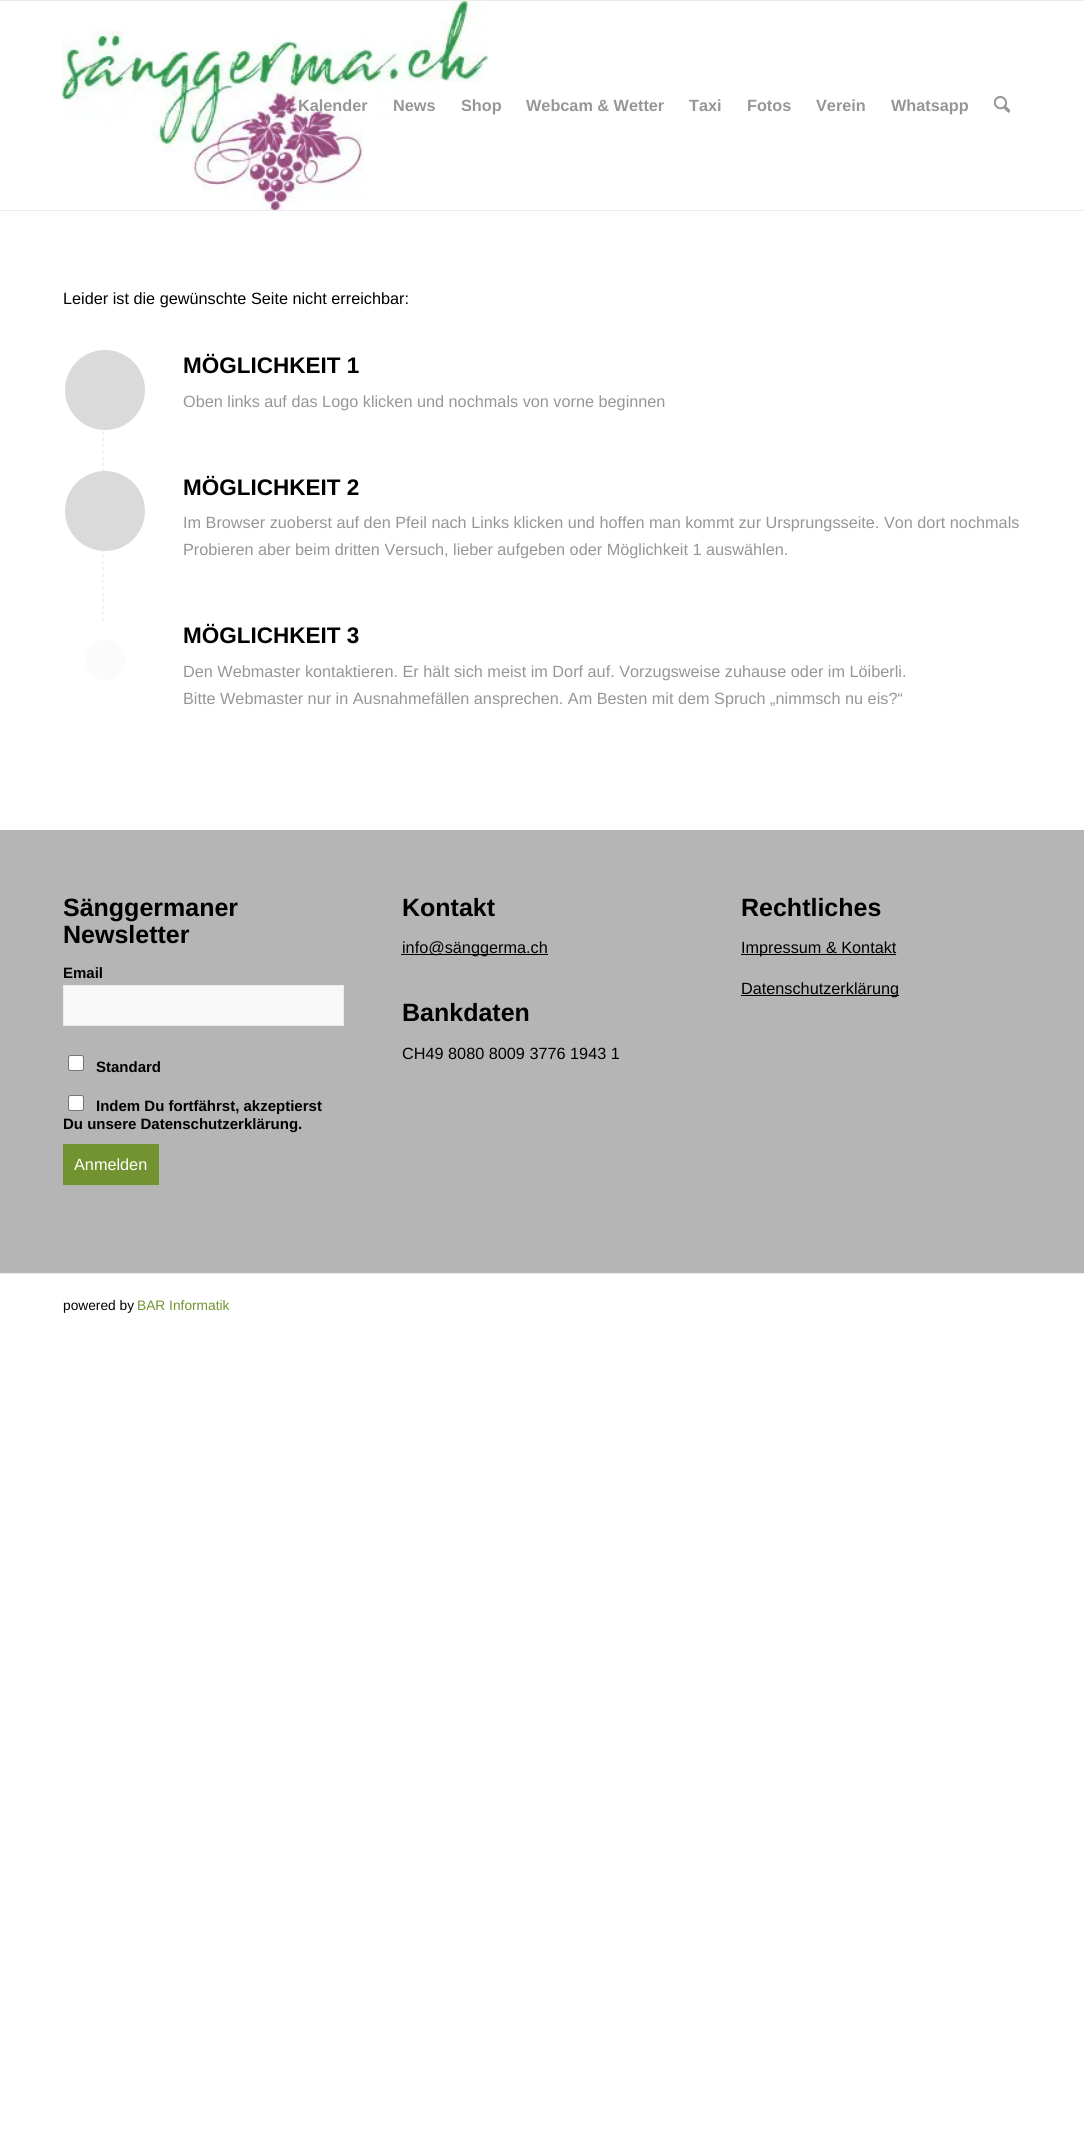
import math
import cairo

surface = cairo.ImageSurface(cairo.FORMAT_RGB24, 1084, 2148)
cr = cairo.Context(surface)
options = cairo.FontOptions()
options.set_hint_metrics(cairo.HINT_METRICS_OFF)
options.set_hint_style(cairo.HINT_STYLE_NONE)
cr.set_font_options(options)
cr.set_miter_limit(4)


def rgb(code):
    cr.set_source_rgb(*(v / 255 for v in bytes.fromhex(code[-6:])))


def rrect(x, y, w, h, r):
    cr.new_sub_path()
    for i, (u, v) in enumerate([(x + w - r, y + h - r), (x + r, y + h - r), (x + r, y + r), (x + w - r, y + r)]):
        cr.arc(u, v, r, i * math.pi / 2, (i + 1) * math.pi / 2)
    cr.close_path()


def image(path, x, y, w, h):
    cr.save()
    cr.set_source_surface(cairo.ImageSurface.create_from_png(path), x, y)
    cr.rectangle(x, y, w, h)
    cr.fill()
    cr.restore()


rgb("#ffffff")
cr.paint()
rgb("#ebebeb")
cr.rectangle(0, 0, 1084, 1)
cr.fill()
cr.rectangle(0, 210, 1084, 1)
cr.fill()
image("img/1.png", 62, 1, 426, 209)
image("img/2.png", 994, 96, 16, 17)
cr.new_path()
cr.move_to(103, 350)
cr.line_to(103, 472.5)
cr.set_line_width(1.2)
cr.set_dash([3.75, 2.5])
cr.stroke()
rgb("#dadada")
cr.arc(105, 390, 40, 0, 2 * math.pi)
cr.fill()
cr.new_path()
cr.move_to(103, 472.5)
cr.line_to(103, 621)
rgb("#ebebeb")
cr.set_dash([3.75, 2.55])
cr.stroke()
rgb("#dadada")
cr.arc(105, 511, 40, 0, 2 * math.pi)
cr.fill()
rgb("#fbfbfb")
cr.arc(105, 660, 20, 0, 2 * math.pi)
cr.fill()
rgb("#b5b5b5")
cr.rectangle(0, 830, 1084, 443)
cr.fill()
rgb("#f8f8f8")
cr.rectangle(63.5, 985.5, 280, 40)
cr.fill_preserve()
rgb("#ebebeb")
cr.set_line_width(1)
cr.set_dash([])
cr.stroke()
rgb("#ffffff")
rrect(68.5, 1055.5, 15, 15, 2)
cr.fill_preserve()
rgb("#767676")
cr.stroke()
rgb("#ffffff")
rrect(68.5, 1095.5, 15, 15, 2)
cr.fill_preserve()
rgb("#767676")
cr.stroke()
for x, y, w, h, color in [
    (63, 1144, 96, 41, "#719430"),
    (401, 954, 147, 1, "#000000"),
    (741, 954, 155, 1, "#000000"),
    (741, 995, 158, 1, "#000000"),
    (0, 1273, 1084, 1, "#ebebeb"),
]:
    rgb(color)
    cr.rectangle(x, y, w, h)
    cr.fill()
cr.select_font_face("Liberation Sans", cairo.FONT_SLANT_NORMAL, cairo.FONT_WEIGHT_BOLD)
cr.set_font_size(16.25)
rgb("#969696")
for x, y, s in [
    (298, 111, "Kalender"),
    (393, 111, "News"),
    (461, 111, "Shop"),
    (526, 111, "Webcam & Wetter"),
    (689, 111, "Taxi"),
    (747, 111, "Fotos"),
    (816, 111, "Verein"),
    (891, 111, "Whatsapp"),
]:
    cr.move_to(x, y)
    cr.show_text(s)
cr.select_font_face("Liberation Sans")
rgb("#000000")
cr.move_to(63, 304)
cr.show_text("Leider ist die gewünschte Seite nicht erreichbar:")
cr.select_font_face("Liberation Sans", cairo.FONT_SLANT_NORMAL, cairo.FONT_WEIGHT_BOLD)
cr.set_font_size(22.5)
cr.move_to(183, 373)
cr.show_text("MÖGLICHKEIT 1")
cr.select_font_face("Liberation Sans")
cr.set_font_size(16.25)
rgb("#969696")
cr.move_to(183, 407)
cr.show_text("Oben links auf das Logo klicken und nochmals von vorne beginnen")
cr.select_font_face("Liberation Sans", cairo.FONT_SLANT_NORMAL, cairo.FONT_WEIGHT_BOLD)
cr.set_font_size(22.5)
rgb("#000000")
cr.move_to(183, 495)
cr.show_text("MÖGLICHKEIT 2")
cr.select_font_face("Liberation Sans")
cr.set_font_size(16.25)
rgb("#969696")
cr.move_to(183, 528)
cr.show_text("Im Browser zuoberst auf den Pfeil nach Links klicken und hoffen man kommt zur Ursprungsseite. Von dort nochmals")
cr.move_to(183, 555)
cr.show_text("Probieren aber beim dritten Versuch, lieber aufgeben oder Möglichkeit 1 auswählen.")
cr.select_font_face("Liberation Sans", cairo.FONT_SLANT_NORMAL, cairo.FONT_WEIGHT_BOLD)
cr.set_font_size(22.5)
rgb("#000000")
cr.move_to(183, 643)
cr.show_text("MÖGLICHKEIT 3")
cr.select_font_face("Liberation Sans")
cr.set_font_size(16.25)
rgb("#969696")
cr.move_to(183, 677)
cr.show_text("Den Webmaster kontaktieren. Er hält sich meist im Dorf auf. Vorzugsweise zuhause oder im Löiberli.")
cr.move_to(183, 704)
cr.show_text("Bitte Webmaster nur in Ausnahmefällen ansprechen. Am Besten mit dem Spruch „nimmsch nu eis?“")
cr.select_font_face("Liberation Sans", cairo.FONT_SLANT_NORMAL, cairo.FONT_WEIGHT_BOLD)
cr.set_font_size(25)
rgb("#000000")
cr.move_to(63, 916)
cr.show_text("Sänggermaner")
cr.move_to(63, 943)
cr.show_text("Newsletter")
cr.set_font_size(15)
for x, y, s in [
    (63, 978, "Email"),
    (96, 1072, "Standard"),
    (96, 1111, "Indem Du fortfährst, akzeptierst"),
    (63, 1129, "Du unsere Datenschutzerklärung."),
]:
    cr.move_to(x, y)
    cr.show_text(s)
cr.select_font_face("Liberation Sans")
cr.set_font_size(16.25)
rgb("#ffffff")
cr.move_to(74, 1170)
cr.show_text("Anmelden")
cr.select_font_face("Liberation Sans", cairo.FONT_SLANT_NORMAL, cairo.FONT_WEIGHT_BOLD)
cr.set_font_size(25)
rgb("#000000")
cr.move_to(402, 916)
cr.show_text("Kontakt")
cr.select_font_face("Liberation Sans")
cr.set_font_size(16.25)
cr.move_to(402, 953)
cr.show_text("info@sänggerma.ch")
cr.select_font_face("Liberation Sans", cairo.FONT_SLANT_NORMAL, cairo.FONT_WEIGHT_BOLD)
cr.set_font_size(25)
cr.move_to(402, 1021)
cr.show_text("Bankdaten")
cr.select_font_face("Liberation Sans")
cr.set_font_size(16.25)
cr.move_to(402, 1059)
cr.show_text("CH49 8080 8009 3776 1943 1")
cr.select_font_face("Liberation Sans", cairo.FONT_SLANT_NORMAL, cairo.FONT_WEIGHT_BOLD)
cr.set_font_size(25)
cr.move_to(741, 916)
cr.show_text("Rechtliches")
cr.select_font_face("Liberation Sans")
cr.set_font_size(16.25)
cr.move_to(741, 953)
cr.show_text("Impressum & Kontakt")
cr.move_to(741, 994)
cr.show_text("Datenschutzerklärung")
cr.set_font_size(13.75)
cr.move_to(63, 1310)
cr.show_text("powered by")
rgb("#719430")
cr.move_to(137, 1310)
cr.show_text("BAR Informatik")
surface.write_to_png("page.png")
